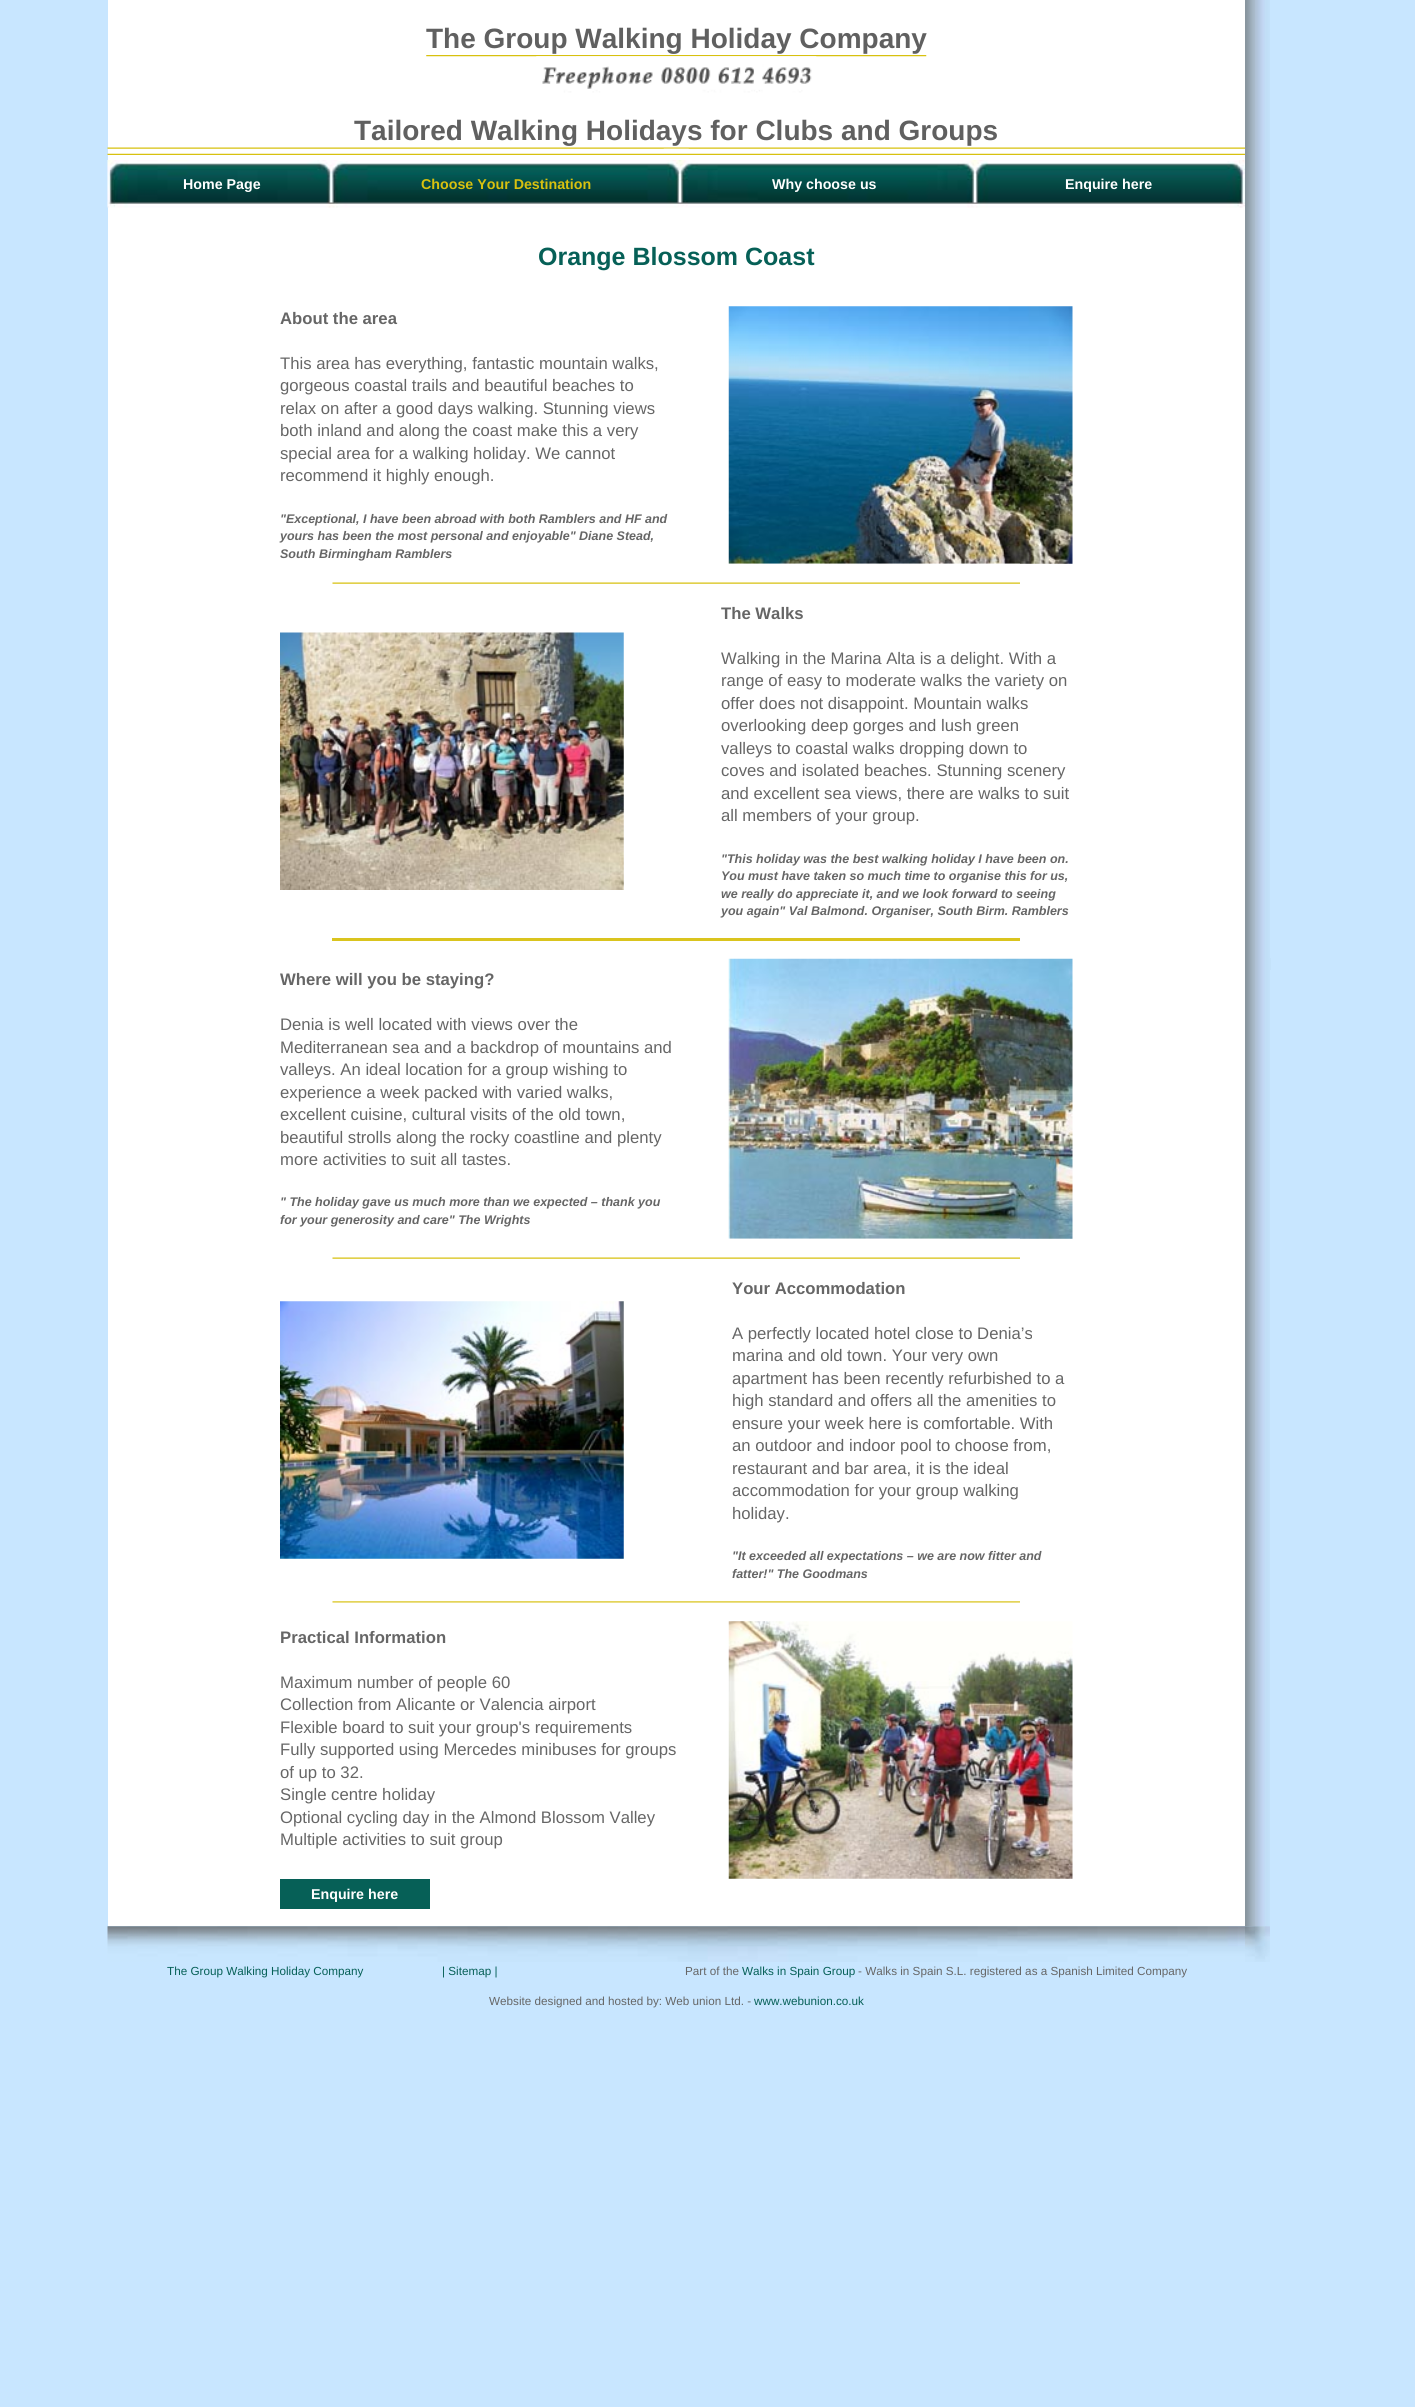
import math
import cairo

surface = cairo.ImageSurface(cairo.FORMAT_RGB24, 1415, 2407)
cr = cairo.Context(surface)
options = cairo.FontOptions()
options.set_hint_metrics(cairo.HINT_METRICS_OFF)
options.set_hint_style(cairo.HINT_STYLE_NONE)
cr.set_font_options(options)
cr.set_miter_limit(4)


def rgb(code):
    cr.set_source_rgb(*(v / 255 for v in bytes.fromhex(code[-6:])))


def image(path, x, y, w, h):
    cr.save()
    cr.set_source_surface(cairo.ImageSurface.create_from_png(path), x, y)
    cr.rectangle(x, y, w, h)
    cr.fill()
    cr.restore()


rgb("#c8e6ff")
cr.paint()
rgb("#ffffff")
cr.rectangle(108, 0, 1137, 1926)
cr.fill()
image("img/1.png", 426, 55, 501, 2)
image("img/2.png", 536, 56, 281, 37)
image("img/3.png", 107, 147, 1138, 2)
image("img/4.png", 663, 148, 26, 1)
image("img/5.png", 107, 153, 1138, 2)
image("img/6.png", 107, 160, 1138, 48)
image("img/7.png", 728, 306, 345, 258)
image("img/8.png", 332, 563, 688, 21)
image("img/9.png", 280, 632, 344, 258)
rgb("#dac41e")
cr.rectangle(332, 938, 688, 3)
cr.fill()
image("img/10.png", 728, 958, 345, 281)
image("img/11.png", 332, 1238, 688, 21)
image("img/12.png", 280, 1301, 344, 258)
image("img/13.png", 332, 1601, 688, 2)
image("img/14.png", 728, 1621, 345, 258)
rgb("#066057")
cr.rectangle(280, 1879, 150, 30)
cr.fill()
image("img/15.png", 1245, 0, 25, 1927)
rgb("#c4e2fa")
cr.rectangle(1270, 958, 1, 12)
cr.fill()
image("img/16.png", 107, 1926, 1138, 36)
image("img/17.png", 1245, 1926, 25, 36)
cr.select_font_face("Liberation Sans", cairo.FONT_SLANT_NORMAL, cairo.FONT_WEIGHT_BOLD)
cr.set_font_size(28)
rgb("#606060")
cr.move_to(426, 48)
cr.show_text("The Group Walking Holiday Company")
cr.move_to(354, 140)
cr.show_text("Tailored Walking Holidays for Clubs and Groups")
cr.set_font_size(14.25)
rgb("#ffffff")
cr.move_to(183, 189)
cr.show_text("Home Page")
rgb("#d8c10f")
cr.move_to(421, 189)
cr.show_text("Choose Your Destination")
rgb("#ffffff")
cr.move_to(772, 189)
cr.show_text("Why choose us")
cr.move_to(1065, 189)
cr.show_text("Enquire here")
cr.set_font_size(25)
rgb("#066057")
cr.move_to(538, 265)
cr.show_text("Orange Blossom Coast")
cr.set_font_size(16.7)
rgb("#666666")
cr.move_to(280, 324)
cr.show_text("About the area")
cr.select_font_face("Liberation Sans")
for x, y, s in [
    (280, 369, "This area has everything, fantastic mountain walks,"),
    (280, 391, "gorgeous coastal trails and beautiful beaches to"),
    (280, 414, "relax on after a good days walking. Stunning views"),
    (280, 436, "both inland and along the coast make this a very"),
    (280, 459, "special area for a walking holiday. We cannot"),
    (280, 481, "recommend it highly enough."),
]:
    cr.move_to(x, y)
    cr.show_text(s)
cr.select_font_face("Liberation Sans", cairo.FONT_SLANT_ITALIC, cairo.FONT_WEIGHT_BOLD)
cr.set_font_size(12.5)
for x, y, s in [
    (280, 523, "\"Exceptional, I have been abroad with both Ramblers and HF and"),
    (280, 540, "yours has been the most personal and enjoyable\" Diane Stead,"),
    (280, 558, "South Birmingham Ramblers"),
]:
    cr.move_to(x, y)
    cr.show_text(s)
cr.select_font_face("Liberation Sans", cairo.FONT_SLANT_NORMAL, cairo.FONT_WEIGHT_BOLD)
cr.set_font_size(16.7)
cr.move_to(721, 619)
cr.show_text("The Walks")
cr.select_font_face("Liberation Sans")
for x, y, s in [
    (721, 664, "Walking in the Marina Alta is a delight. With a"),
    (721, 686, "range of easy to moderate walks the variety on"),
    (721, 709, "offer does not disappoint. Mountain walks"),
    (721, 731, "overlooking deep gorges and lush green"),
    (721, 754, "valleys to coastal walks dropping down to"),
    (721, 776, "coves and isolated beaches. Stunning scenery"),
    (721, 799, "and excellent sea views, there are walks to suit"),
    (721, 821, "all members of your group."),
]:
    cr.move_to(x, y)
    cr.show_text(s)
cr.select_font_face("Liberation Sans", cairo.FONT_SLANT_ITALIC, cairo.FONT_WEIGHT_BOLD)
cr.set_font_size(12.5)
for x, y, s in [
    (721, 863, "\"This holiday was the best walking holiday I have been on."),
    (721, 880, "You must have taken so much time to organise this for us,"),
    (721, 898, "we really do appreciate it, and we look forward to seeing"),
    (721, 915, "you again\" Val Balmond. Organiser, South Birm. Ramblers"),
]:
    cr.move_to(x, y)
    cr.show_text(s)
cr.select_font_face("Liberation Sans", cairo.FONT_SLANT_NORMAL, cairo.FONT_WEIGHT_BOLD)
cr.set_font_size(16.7)
cr.move_to(280, 985)
cr.show_text("Where will you be staying?")
cr.select_font_face("Liberation Sans")
for x, y, s in [
    (280, 1030, "Denia is well located with views over the"),
    (280, 1053, "Mediterranean sea and a backdrop of mountains and"),
    (280, 1075, "valleys. An ideal location for a group wishing to"),
    (280, 1098, "experience a week packed with varied walks,"),
    (280, 1120, "excellent cuisine, cultural visits of the old town,"),
    (280, 1143, "beautiful strolls along the rocky coastline and plenty"),
    (280, 1165, "more activities to suit all tastes."),
]:
    cr.move_to(x, y)
    cr.show_text(s)
cr.select_font_face("Liberation Sans", cairo.FONT_SLANT_ITALIC, cairo.FONT_WEIGHT_BOLD)
cr.set_font_size(12.5)
cr.move_to(280, 1206)
cr.show_text("\" The holiday gave us much more than we expected – thank you")
cr.move_to(280, 1224)
cr.show_text("for your generosity and care\" The Wrights")
cr.select_font_face("Liberation Sans", cairo.FONT_SLANT_NORMAL, cairo.FONT_WEIGHT_BOLD)
cr.set_font_size(16.7)
cr.move_to(732, 1294)
cr.show_text("Your Accommodation")
cr.select_font_face("Liberation Sans")
for x, y, s in [
    (732, 1339, "A perfectly located hotel close to Denia’s"),
    (732, 1361, "marina and old town. Your very own"),
    (732, 1384, "apartment has been recently refurbished to a"),
    (732, 1406, "high standard and offers all the amenities to"),
    (732, 1429, "ensure your week here is comfortable. With"),
    (732, 1451, "an outdoor and indoor pool to choose from,"),
    (732, 1474, "restaurant and bar area, it is the ideal"),
    (732, 1496, "accommodation for your group walking"),
    (732, 1519, "holiday."),
]:
    cr.move_to(x, y)
    cr.show_text(s)
cr.select_font_face("Liberation Sans", cairo.FONT_SLANT_ITALIC, cairo.FONT_WEIGHT_BOLD)
cr.set_font_size(12.5)
cr.move_to(732, 1560)
cr.show_text("\"It exceeded all expectations – we are now fitter and")
cr.move_to(732, 1578)
cr.show_text("fatter!\" The Goodmans")
cr.select_font_face("Liberation Sans", cairo.FONT_SLANT_NORMAL, cairo.FONT_WEIGHT_BOLD)
cr.set_font_size(16.7)
cr.move_to(280, 1643)
cr.show_text("Practical Information")
cr.select_font_face("Liberation Sans")
for x, y, s in [
    (280, 1688, "Maximum number of people 60"),
    (280, 1710, "Collection from Alicante or Valencia airport"),
    (280, 1733, "Flexible board to suit your group's requirements"),
    (280, 1755, "Fully supported using Mercedes minibuses for groups"),
    (280, 1778, "of up to 32."),
    (280, 1800, "Single centre holiday"),
    (280, 1823, "Optional cycling day in the Almond Blossom Valley"),
    (280, 1845, "Multiple activities to suit group"),
]:
    cr.move_to(x, y)
    cr.show_text(s)
cr.select_font_face("Liberation Sans", cairo.FONT_SLANT_NORMAL, cairo.FONT_WEIGHT_BOLD)
cr.set_font_size(14.25)
rgb("#ffffff")
cr.move_to(311, 1899)
cr.show_text("Enquire here")
cr.select_font_face("Liberation Sans")
cr.set_font_size(11.7)
rgb("#066057")
cr.move_to(167, 1975)
cr.show_text("The Group Walking Holiday Company")
cr.move_to(442, 1975)
cr.show_text("| Sitemap |")
rgb("#666666")
cr.move_to(685, 1975)
cr.show_text("Part of the")
rgb("#066057")
cr.move_to(742, 1975)
cr.show_text("Walks in Spain Group")
rgb("#666666")
cr.move_to(858, 1975)
cr.show_text("- Walks in Spain S.L. registered as a Spanish Limited Company")
cr.move_to(489, 2005)
cr.show_text("Website designed and hosted by: Web union Ltd. -")
rgb("#066057")
cr.move_to(754, 2005)
cr.show_text("www.webunion.co.uk")
surface.write_to_png("page.png")
